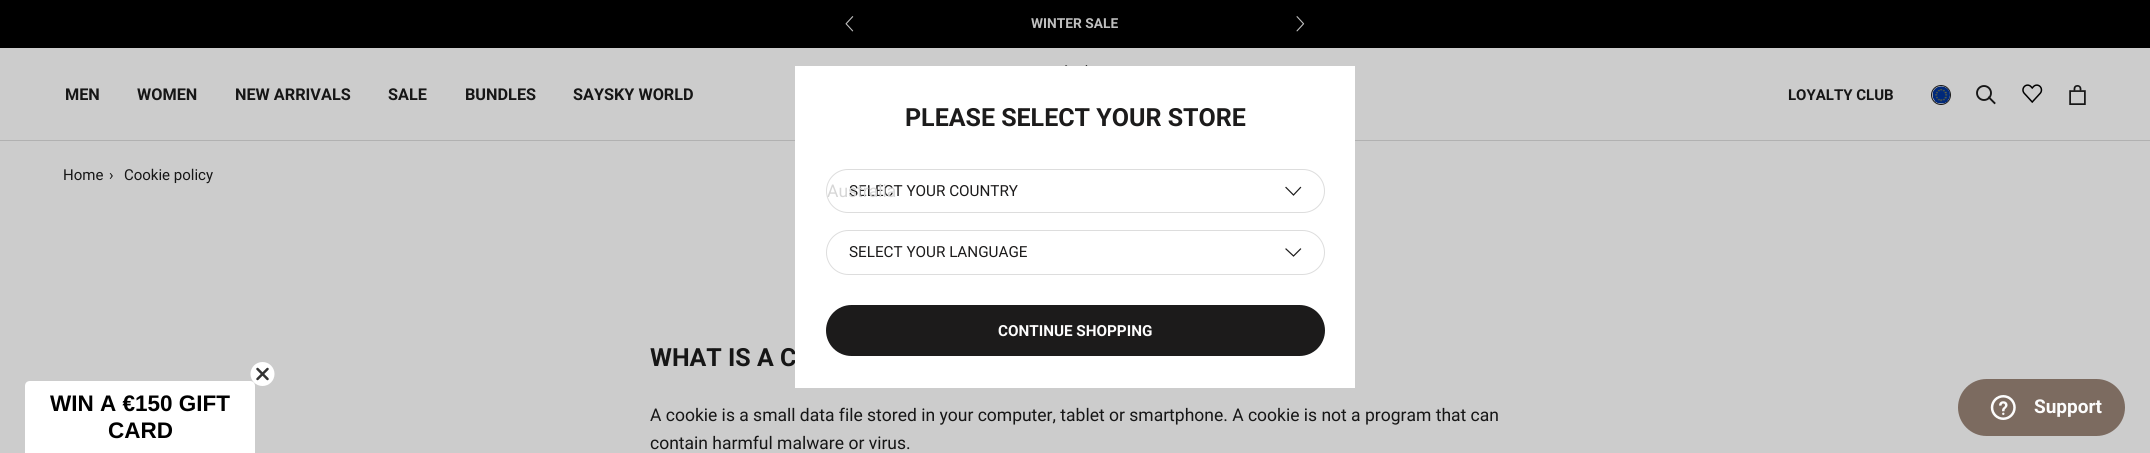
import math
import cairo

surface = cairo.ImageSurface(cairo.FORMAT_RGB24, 2150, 453)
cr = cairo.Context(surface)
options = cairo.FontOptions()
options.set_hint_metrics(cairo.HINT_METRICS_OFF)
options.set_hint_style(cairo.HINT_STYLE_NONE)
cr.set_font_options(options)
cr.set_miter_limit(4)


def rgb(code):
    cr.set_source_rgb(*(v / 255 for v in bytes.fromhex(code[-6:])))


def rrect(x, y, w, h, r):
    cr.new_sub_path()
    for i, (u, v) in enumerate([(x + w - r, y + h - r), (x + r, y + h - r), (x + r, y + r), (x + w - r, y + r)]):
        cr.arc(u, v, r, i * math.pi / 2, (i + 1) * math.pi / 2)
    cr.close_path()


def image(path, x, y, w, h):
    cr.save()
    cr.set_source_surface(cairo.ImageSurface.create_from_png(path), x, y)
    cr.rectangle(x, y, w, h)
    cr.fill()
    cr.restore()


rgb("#cccccc")
cr.paint()
rgb("#000000")
cr.rectangle(0, 0, 2150, 48)
cr.fill()
image("img/1.png", 845, 16, 9, 16)
image("img/2.png", 1296, 16, 9, 16)
rgb("#b1b1b1")
cr.rectangle(0, 140, 2150, 1)
cr.fill()
image("img/3.png", 1065, 65, 23, 1)
cr.arc(1941, 95, 9.5, 0, 2 * math.pi)
rgb("#161616")
cr.set_line_width(1)
cr.stroke()
image("img/4.png", 1932, 86, 18, 18)
cr.new_path()
cr.move_to(1994.5, 103)
cr.line_to(1989, 97.5)
cr.set_line_width(1.9)
cr.set_line_cap(cairo.LINE_CAP_SQUARE)
cr.stroke()
cr.arc(1984, 93, 7, 0, 2 * math.pi)
cr.set_line_cap(cairo.LINE_CAP_BUTT)
cr.stroke()
image("img/5.png", 2022, 84, 21, 19)
image("img/6.png", 2069, 85, 17, 20)
rgb("#ffffff")
cr.new_path()
cr.move_to(30, 381)
cr.line_to(250, 381)
cr.curve_to(253, 381, 255, 383, 255, 386)
cr.line_to(255, 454)
cr.line_to(25, 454)
cr.line_to(25, 386)
cr.curve_to(25, 383, 27, 381, 30, 381)
cr.close_path()
cr.fill()
cr.arc(262.5, 374, 12, 0, 2 * math.pi)
cr.fill()
cr.new_path()
cr.move_to(257.5, 369)
cr.line_to(267.5, 379)
cr.move_to(257.5, 379)
cr.line_to(267.5, 369)
cr.close_path()
rgb("#333333")
cr.set_line_width(2.5)
cr.set_line_cap(cairo.LINE_CAP_ROUND)
cr.set_line_join(cairo.LINE_JOIN_ROUND)
cr.stroke()
rgb("#7c6b60")
rrect(1958, 379, 167, 57, 28.5)
cr.fill()
image("img/7.png", 1990, 395, 26, 25)
cr.select_font_face("Roboto", cairo.FONT_SLANT_NORMAL, cairo.FONT_WEIGHT_BOLD)
cr.set_font_size(13.75)
rgb("#bfbfbf")
cr.move_to(1031, 28)
cr.show_text("WINTER SALE")
cr.set_font_size(16.25)
rgb("#161616")
for x, y, s in [
    (65, 100, "MEN"),
    (137, 100, "WOMEN"),
    (235, 100, "NEW ARRIVALS"),
    (388, 100, "SALE"),
    (465, 100, "BUNDLES"),
    (573, 100, "SAYSKY WORLD"),
]:
    cr.move_to(x, y)
    cr.show_text(s)
cr.set_font_size(15)
cr.move_to(1788, 100)
cr.show_text("LOYALTY CLUB")
cr.select_font_face("Roboto")
for x, y, s in [
    (63, 180, "Home"),
    (109, 180, "›"),
    (124, 180, "Cookie policy"),
]:
    cr.move_to(x, y)
    cr.show_text(s)
cr.select_font_face("Roboto", cairo.FONT_SLANT_NORMAL, cairo.FONT_WEIGHT_BOLD)
cr.set_font_size(25)
cr.move_to(650, 366)
cr.show_text("WHAT IS A C")
cr.select_font_face("Roboto")
cr.set_font_size(17.5)
cr.move_to(650, 421)
cr.show_text("A cookie is a small data file stored in your computer, tablet or smartphone. A cookie is not a program that can")
cr.move_to(650, 449)
cr.show_text("contain harmful malware or virus.")
rgb("#ffffff")
cr.rectangle(795, 66, 560, 322)
cr.fill()
cr.select_font_face("Roboto", cairo.FONT_SLANT_NORMAL, cairo.FONT_WEIGHT_BOLD)
cr.set_font_size(25)
rgb("#1c1b1b")
cr.move_to(905, 126)
cr.show_text("PLEASE SELECT YOUR STORE")
rrect(826.5, 169.5, 498, 43, 21.5)
rgb("#dddddd")
cr.set_line_width(1)
cr.set_line_cap(cairo.LINE_CAP_BUTT)
cr.set_line_join(cairo.LINE_JOIN_MITER)
cr.stroke()
cr.select_font_face("Roboto")
cr.set_font_size(15.25)
rgb("#1c1b1b")
cr.move_to(849, 196)
cr.show_text("SELECT YOUR COUNTRY")
cr.set_font_size(17.5)
rgb("#d6d6d6")
cr.move_to(827, 197)
cr.show_text("Australia")
cr.new_path()
cr.move_to(1300.5, 187.5)
cr.line_to(1293.5, 195)
cr.line_to(1286, 187.5)
rgb("#1c1b1b")
cr.set_line_width(1.2)
cr.set_line_cap(cairo.LINE_CAP_SQUARE)
cr.stroke()
rrect(826.5, 230.5, 498, 44, 22)
rgb("#dddddd")
cr.set_line_width(1)
cr.set_line_cap(cairo.LINE_CAP_BUTT)
cr.stroke()
cr.set_font_size(15.25)
rgb("#1c1b1b")
cr.move_to(849, 257)
cr.show_text("SELECT YOUR LANGUAGE")
cr.new_path()
cr.move_to(1300.5, 249)
cr.line_to(1293.5, 256)
cr.line_to(1286, 249)
cr.set_line_width(1.2)
cr.set_line_cap(cairo.LINE_CAP_SQUARE)
cr.stroke()
rrect(826, 305, 499, 51, 25.5)
cr.fill()
cr.select_font_face("Roboto", cairo.FONT_SLANT_NORMAL, cairo.FONT_WEIGHT_BOLD)
rgb("#fcfcfc")
cr.move_to(998, 336)
cr.show_text("CONTINUE SHOPPING")
cr.select_font_face("Liberation Sans", cairo.FONT_SLANT_NORMAL, cairo.FONT_WEIGHT_BOLD)
cr.set_font_size(22.5)
rgb("#000000")
cr.move_to(50, 411)
cr.show_text("WIN A €150 GIFT")
cr.move_to(108, 438)
cr.show_text("CARD")
cr.select_font_face("Roboto", cairo.FONT_SLANT_NORMAL, cairo.FONT_WEIGHT_BOLD)
cr.set_font_size(19)
rgb("#fcfcfc")
cr.move_to(2034, 413)
cr.show_text("Support")
surface.write_to_png("page.png")
